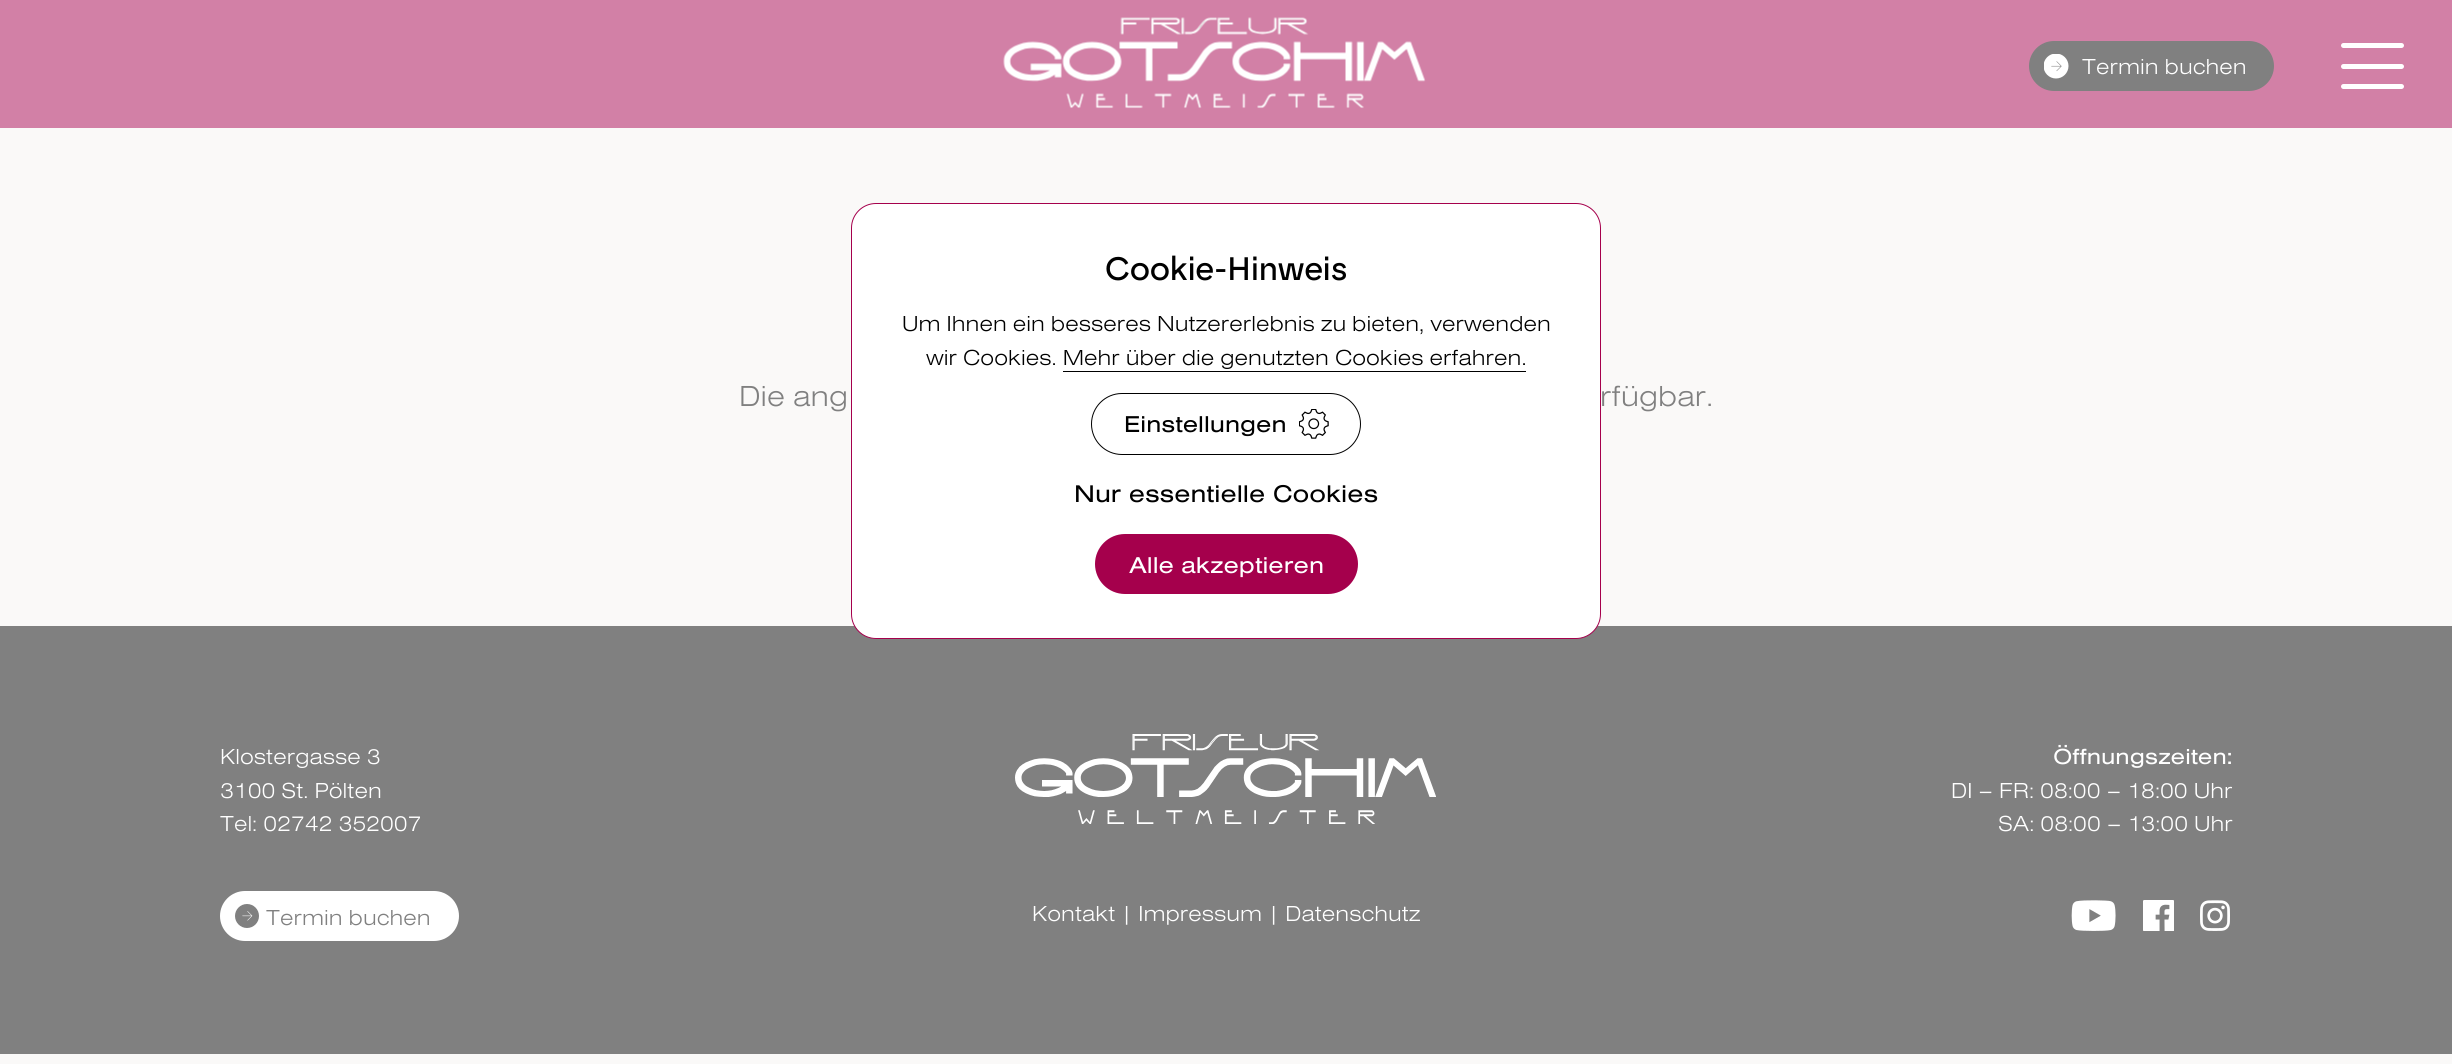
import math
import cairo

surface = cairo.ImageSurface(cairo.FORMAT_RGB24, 2452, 1064)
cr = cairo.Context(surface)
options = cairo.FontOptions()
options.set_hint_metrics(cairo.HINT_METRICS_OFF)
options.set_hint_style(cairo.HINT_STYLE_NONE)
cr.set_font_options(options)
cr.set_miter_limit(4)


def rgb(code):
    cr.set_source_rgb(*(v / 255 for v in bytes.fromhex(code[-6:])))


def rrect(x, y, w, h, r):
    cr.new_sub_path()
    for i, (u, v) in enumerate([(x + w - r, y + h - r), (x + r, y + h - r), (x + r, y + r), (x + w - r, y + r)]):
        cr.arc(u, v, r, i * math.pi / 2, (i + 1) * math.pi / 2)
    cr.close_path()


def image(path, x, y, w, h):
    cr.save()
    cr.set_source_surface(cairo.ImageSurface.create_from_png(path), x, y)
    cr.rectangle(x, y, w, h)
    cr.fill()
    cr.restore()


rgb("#faf9f8")
cr.paint()
rgb("#d280a6")
cr.rectangle(0, 0, 2452, 128)
cr.fill()
image("img/1.png", 1003, 17, 423, 92)
rgb("#808080")
rrect(2030.5, 42.5, 242, 47, 23.5)
cr.fill_preserve()
cr.set_line_width(3)
cr.stroke()
image("img/2.png", 2044, 54, 25, 25)
rgb("#ffffff")
rrect(2341, 43, 63, 5, 2.5)
cr.fill()
rrect(2341, 64, 63, 5, 2.5)
cr.fill()
rrect(2341, 84, 63, 5, 2.5)
cr.fill()
rgb("#808080")
cr.rectangle(0, 626, 2452, 428)
cr.fill()
image("img/3.png", 1015, 734, 421, 90)
rgb("#ffffff")
rrect(221.5, 892.5, 236, 47, 23.5)
cr.fill_preserve()
cr.stroke()
image("img/4.png", 235, 904, 24, 24)
image("img/5.png", 2071, 900, 45, 31)
image("img/6.png", 2143, 900, 31, 31)
image("img/7.png", 2200, 900, 30, 31)
rrect(851.5, 203.5, 749, 435, 24.5)
cr.fill_preserve()
rgb("#a5004c")
cr.set_line_width(1)
cr.stroke()
rgb("#000000")
cr.rectangle(1063, 371, 463, 1)
cr.fill()
rrect(1091.5, 393.5, 269, 61, 30.5)
cr.stroke()
image("img/8.png", 1299, 409, 30, 30)
rgb("#a5004c")
rrect(1096.5, 535.5, 260, 57, 28.5)
cr.fill_preserve()
cr.set_line_width(3)
cr.stroke()
cr.select_font_face("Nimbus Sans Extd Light")
cr.set_font_size(22.5)
rgb("#ffffff")
cr.move_to(2082, 74)
cr.show_text("Termin buchen")
cr.set_font_size(30)
rgb("#808080")
cr.move_to(739, 406)
cr.show_text("Die ang")
cr.move_to(1600, 406)
cr.show_text("rfügbar.")
cr.set_font_size(22.5)
rgb("#ffffff")
for x, y, s in [
    (220, 764, "Klostergasse 3"),
    (220, 798, "3100 St. Pölten"),
    (220, 831, "Tel: 02742 352007"),
]:
    cr.move_to(x, y)
    cr.show_text(s)
cr.select_font_face("Nimbus Sans Extd")
cr.move_to(2053, 764)
cr.show_text("Öffnungszeiten:")
cr.select_font_face("Nimbus Sans Extd Light")
cr.move_to(1951, 798)
cr.show_text("DI – FR: 08:00 – 18:00 Uhr")
cr.move_to(1998, 831)
cr.show_text("SA: 08:00 – 13:00 Uhr")
rgb("#808080")
cr.move_to(266, 925)
cr.show_text("Termin buchen")
rgb("#ffffff")
for x, y, s in [
    (1032, 921, "Kontakt"),
    (1121, 921, "| Impressum"),
    (1268, 921, "| Datenschutz"),
]:
    cr.move_to(x, y)
    cr.show_text(s)
cr.select_font_face("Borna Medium")
cr.set_font_size(32.5)
rgb("#000000")
cr.move_to(1105, 280)
cr.show_text("Cookie-Hinweis")
cr.select_font_face("Nimbus Sans Extd Light")
cr.set_font_size(22.5)
cr.move_to(902, 331)
cr.show_text("Um Ihnen ein besseres Nutzererlebnis zu bieten, verwenden")
cr.move_to(926, 365)
cr.show_text("wir Cookies. Mehr über die genutzten Cookies erfahren.")
cr.select_font_face("Nimbus Sans Extd")
cr.set_font_size(23.75)
cr.move_to(1124, 432)
cr.show_text("Einstellungen")
cr.set_font_size(25)
cr.move_to(1074, 502)
cr.show_text("Nur essentielle Cookies")
cr.set_font_size(23.75)
rgb("#ffffff")
cr.move_to(1129, 573)
cr.show_text("Alle akzeptieren")
surface.write_to_png("page.png")
